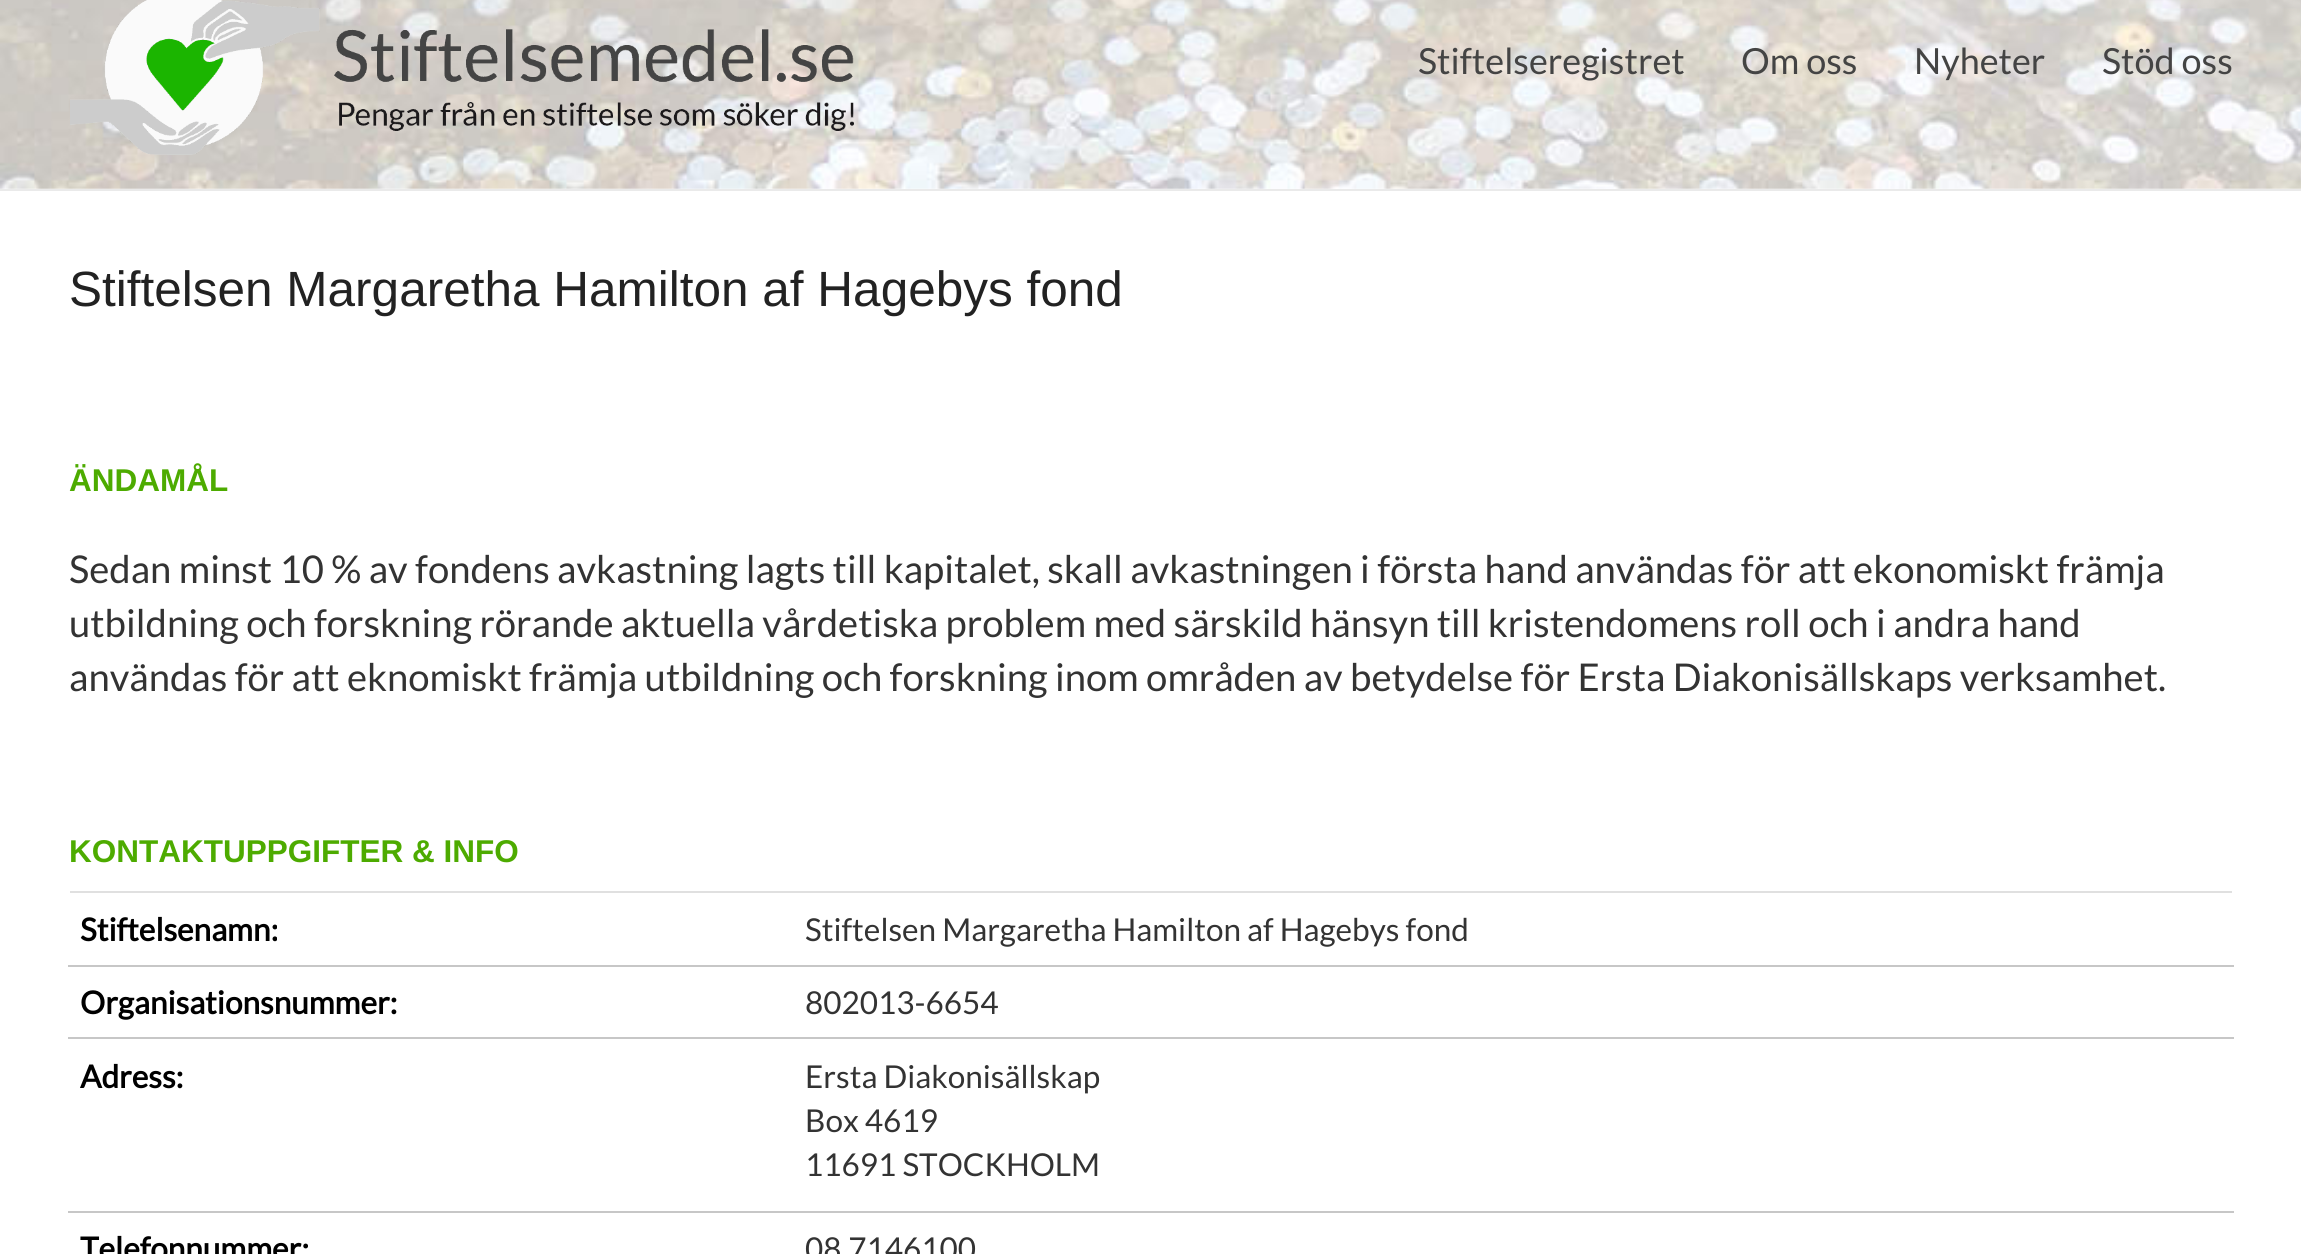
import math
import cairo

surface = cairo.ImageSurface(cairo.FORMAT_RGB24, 2301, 1254)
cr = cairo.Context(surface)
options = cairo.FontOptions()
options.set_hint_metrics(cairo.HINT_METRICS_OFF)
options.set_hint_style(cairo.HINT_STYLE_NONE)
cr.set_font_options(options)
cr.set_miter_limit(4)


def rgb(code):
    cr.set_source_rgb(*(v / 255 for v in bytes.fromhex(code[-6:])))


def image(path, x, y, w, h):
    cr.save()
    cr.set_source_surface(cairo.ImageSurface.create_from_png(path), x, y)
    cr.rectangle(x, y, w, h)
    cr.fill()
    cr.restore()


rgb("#ffffff")
cr.paint()
image("img/1.png", 0, 0, 2301, 189)
rgb("#eaeaea")
cr.rectangle(0, 189, 2301, 2)
cr.fill()
image("img/2.png", 70, 0, 784, 155)
for x, y, w, h, color in [
    (70, 891, 2162, 2, "#e0e0e0"),
    (68, 965, 2166, 2, "#c7c7c7"),
    (68, 1037, 2166, 2, "#c7c7c7"),
    (68, 1211, 2166, 2, "#c7c7c7"),
]:
    rgb(color)
    cr.rectangle(x, y, w, h)
    cr.fill()
cr.select_font_face("Lato")
cr.set_font_size(36)
rgb("#444444")
for x, y, s in [
    (1418, 74, "Stiftelseregistret"),
    (1741, 74, "Om oss"),
    (1914, 74, "Nyheter"),
    (2102, 74, "Stöd oss"),
]:
    cr.move_to(x, y)
    cr.show_text(s)
cr.select_font_face("Liberation Sans")
cr.set_font_size(49.5)
rgb("#222222")
cr.move_to(69, 306)
cr.show_text("Stiftelsen Margaretha Hamilton af Hagebys fond")
cr.select_font_face("Liberation Sans", cairo.FONT_SLANT_NORMAL, cairo.FONT_WEIGHT_BOLD)
cr.set_font_size(31.5)
rgb("#4dab00")
cr.move_to(69, 491)
cr.show_text("ÄNDAMÅL")
cr.select_font_face("Lato")
cr.set_font_size(38.25)
rgb("#333333")
for x, y, s in [
    (69, 583, "Sedan minst 10 % av fondens avkastning lagts till kapitalet, skall avkastningen i första hand användas för att ekonomiskt främja"),
    (69, 637, "utbildning och forskning rörande aktuella vårdetiska problem med särskild hänsyn till kristendomens roll och i andra hand"),
    (69, 691, "användas för att eknomiskt främja utbildning och forskning inom områden av betydelse för Ersta Diakonisällskaps verksamhet."),
]:
    cr.move_to(x, y)
    cr.show_text(s)
cr.select_font_face("Liberation Sans", cairo.FONT_SLANT_NORMAL, cairo.FONT_WEIGHT_BOLD)
cr.set_font_size(31.5)
rgb("#4dab00")
cr.move_to(69, 862)
cr.show_text("KONTAKTUPPGIFTER & INFO")
cr.select_font_face("Lato", cairo.FONT_SLANT_NORMAL, cairo.FONT_WEIGHT_BOLD)
rgb("#000000")
cr.move_to(80, 941)
cr.show_text("Stiftelsenamn:")
cr.select_font_face("Lato")
rgb("#333333")
cr.move_to(805, 941)
cr.show_text("Stiftelsen Margaretha Hamilton af Hagebys fond")
cr.select_font_face("Lato", cairo.FONT_SLANT_NORMAL, cairo.FONT_WEIGHT_BOLD)
rgb("#000000")
cr.move_to(80, 1014)
cr.show_text("Organisationsnummer:")
cr.select_font_face("Lato")
rgb("#333333")
cr.move_to(805, 1014)
cr.show_text("802013-6654")
cr.select_font_face("Lato", cairo.FONT_SLANT_NORMAL, cairo.FONT_WEIGHT_BOLD)
rgb("#000000")
cr.move_to(80, 1088)
cr.show_text("Adress:")
cr.select_font_face("Lato")
rgb("#333333")
for x, y, s in [
    (805, 1088, "Ersta Diakonisällskap"),
    (805, 1132, "Box 4619"),
    (805, 1176, "11691 STOCKHOLM"),
]:
    cr.move_to(x, y)
    cr.show_text(s)
cr.select_font_face("Lato", cairo.FONT_SLANT_NORMAL, cairo.FONT_WEIGHT_BOLD)
rgb("#000000")
cr.move_to(80, 1260)
cr.show_text("Telefonnummer:")
cr.select_font_face("Lato")
rgb("#333333")
cr.move_to(805, 1260)
cr.show_text("08.7146100")
surface.write_to_png("page.png")
